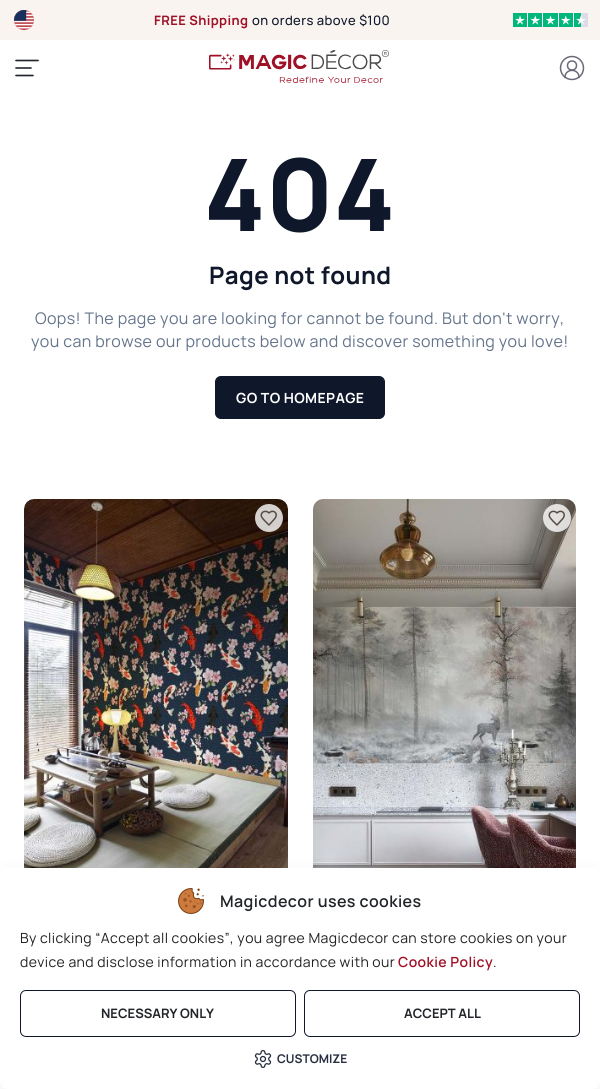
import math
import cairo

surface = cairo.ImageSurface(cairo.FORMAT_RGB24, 600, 1089)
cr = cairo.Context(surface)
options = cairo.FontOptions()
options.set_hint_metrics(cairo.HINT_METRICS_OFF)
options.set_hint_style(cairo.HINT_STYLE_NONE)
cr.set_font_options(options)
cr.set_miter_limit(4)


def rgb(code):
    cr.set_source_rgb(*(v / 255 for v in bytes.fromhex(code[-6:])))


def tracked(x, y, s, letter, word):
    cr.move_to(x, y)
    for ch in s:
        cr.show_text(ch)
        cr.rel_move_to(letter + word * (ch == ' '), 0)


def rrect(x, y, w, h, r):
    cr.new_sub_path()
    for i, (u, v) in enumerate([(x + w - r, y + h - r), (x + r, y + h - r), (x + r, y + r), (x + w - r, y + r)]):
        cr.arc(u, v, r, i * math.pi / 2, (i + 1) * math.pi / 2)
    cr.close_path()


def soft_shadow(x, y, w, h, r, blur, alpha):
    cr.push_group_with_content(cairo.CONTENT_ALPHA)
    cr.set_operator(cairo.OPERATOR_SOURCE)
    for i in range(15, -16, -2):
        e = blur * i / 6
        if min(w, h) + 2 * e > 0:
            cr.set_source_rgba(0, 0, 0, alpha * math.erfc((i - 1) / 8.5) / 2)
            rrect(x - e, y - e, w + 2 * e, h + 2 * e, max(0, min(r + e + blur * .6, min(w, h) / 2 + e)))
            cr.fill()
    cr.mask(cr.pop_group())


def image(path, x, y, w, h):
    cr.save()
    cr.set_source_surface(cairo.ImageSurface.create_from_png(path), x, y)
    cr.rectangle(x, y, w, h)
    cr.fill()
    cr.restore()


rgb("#ffffff")
cr.paint()
rgb("#f9f4f0")
cr.rectangle(0, 0, 600, 40)
cr.fill()
image("img/1.png", 14, 10, 20, 20)
image("img/2.png", 513, 13, 75, 14)
cr.new_path()
cr.move_to(31, 68)
cr.line_to(16, 68)
cr.move_to(33, 75.5)
cr.line_to(16, 75.5)
cr.move_to(38, 60.5)
cr.line_to(16, 60.5)
rgb("#212529")
cr.set_line_width(1.6)
cr.set_line_cap(cairo.LINE_CAP_ROUND)
cr.set_line_join(cairo.LINE_JOIN_ROUND)
cr.stroke()
image("img/3.png", 209, 50, 180, 33)
cr.new_path()
cr.move_to(579, 77.5)
cr.curve_to(579, 68, 565, 68, 565, 77.5)
rgb("#69697a")
cr.set_line_width(1.5)
cr.stroke()
cr.arc(572, 65.5, 4.5, 0, 2 * math.pi)
cr.set_line_cap(cairo.LINE_CAP_BUTT)
cr.set_line_join(cairo.LINE_JOIN_MITER)
cr.stroke()
cr.arc(572, 68, 11.5, 0, 2 * math.pi)
cr.stroke()
rgb("#0f172a")
rrect(215.5, 376.5, 169, 42, 5.5)
cr.fill_preserve()
cr.set_line_width(1)
cr.stroke()
image("img/4.png", 24, 499, 264, 369)
cr.set_source_rgba(1, 1, 1, 0.8)
cr.arc(269, 518, 14, 0, 2 * math.pi)
cr.fill()
cr.new_path()
cr.move_to(274, 519.5)
cr.curve_to(279.5, 514, 273.5, 508.5, 269, 513)
cr.curve_to(266, 509.5, 260, 512, 261.5, 516.5)
cr.curve_to(262.5, 519, 267, 523, 269, 525)
cr.close_path()
rgb("#554c43")
cr.set_line_width(1.5)
cr.set_line_cap(cairo.LINE_CAP_ROUND)
cr.set_line_join(cairo.LINE_JOIN_ROUND)
cr.stroke()
image("img/5.png", 313, 499, 263, 369)
cr.set_source_rgba(1, 1, 1, 0.8)
cr.arc(557, 518, 14, 0, 2 * math.pi)
cr.fill()
cr.new_path()
cr.move_to(562, 519.5)
cr.curve_to(567.5, 514, 561.5, 508.5, 557, 513)
cr.curve_to(554, 509.5, 548, 512, 549.5, 516.5)
cr.curve_to(550.5, 519, 555, 523, 557, 525)
cr.close_path()
rgb("#554c43")
cr.stroke()
rgb("#11111a")
soft_shadow(0, 876, 600, 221, 8, 12, 0.05)
rgb("#ffffff")
rrect(0, 868, 600, 221, 8)
cr.fill()
image("img/6.png", 178, 888, 26, 26)
rrect(20.5, 990.5, 275, 46, 5.5)
rgb("#0f172a")
cr.set_line_width(1)
cr.set_line_cap(cairo.LINE_CAP_BUTT)
cr.set_line_join(cairo.LINE_JOIN_MITER)
cr.stroke()
rrect(304.5, 990.5, 275, 46, 5.5)
cr.stroke()
image("img/7.png", 254, 1050, 18, 18)
cr.select_font_face("Manrope", cairo.FONT_SLANT_NORMAL, cairo.FONT_WEIGHT_BOLD)
cr.set_font_size(13)
rgb("#9f1127")
tracked(154, 25, "FREE Shipping", 0.4, 0)
cr.select_font_face("Manrope Medium")
rgb("#0f172a")
tracked(252, 25, "on orders above $100", 0.4, 0)
cr.select_font_face("Manrope ExtraBold")
cr.set_font_size(100)
tracked(204, 231, "404", 0.4, 0)
cr.select_font_face("Manrope", cairo.FONT_SLANT_NORMAL, cairo.FONT_WEIGHT_BOLD)
cr.set_font_size(24)
tracked(209, 284, "Page not found", 0.4, 0)
cr.select_font_face("Manrope")
cr.set_font_size(16)
rgb("#64748b")
tracked(35, 324, "Oops! The page you are looking for cannot be found. But don't worry,", 0.4, 0)
tracked(31, 347, "you can browse our products below and discover something you love!", 0.4, 0)
cr.select_font_face("Manrope", cairo.FONT_SLANT_NORMAL, cairo.FONT_WEIGHT_BOLD)
cr.set_font_size(14)
rgb("#ffffff")
tracked(236, 403, "GO TO HOMEPAGE", 0.4, 0)
cr.select_font_face("Manrope SemiBold")
cr.set_font_size(16)
rgb("#212529")
tracked(220, 907, "Magicdecor uses cookies", 0.4, 0)
cr.select_font_face("Manrope")
cr.set_font_size(14)
rgb("#212121")
tracked(20, 943, "By clicking “Accept all cookies”, you agree Magicdecor can store cookies on your", 0.4, 0)
tracked(20, 967, "device and disclose information in accordance with our", 0.4, 0)
cr.select_font_face("Manrope SemiBold")
rgb("#9f1127")
tracked(398, 967, "Cookie Policy", 0.4, 0)
cr.select_font_face("Manrope")
rgb("#212121")
tracked(493, 967, ".", 0.4, 0)
cr.select_font_face("Manrope", cairo.FONT_SLANT_NORMAL, cairo.FONT_WEIGHT_BOLD)
cr.set_font_size(13)
rgb("#212529")
cr.move_to(101, 1018)
cr.show_text("NECESSARY ONLY")
cr.move_to(404, 1018)
cr.show_text("ACCEPT ALL")
cr.set_font_size(12)
rgb("#272e3f")
cr.move_to(277, 1063)
cr.show_text("CUSTOMIZE")
surface.write_to_png("page.png")
